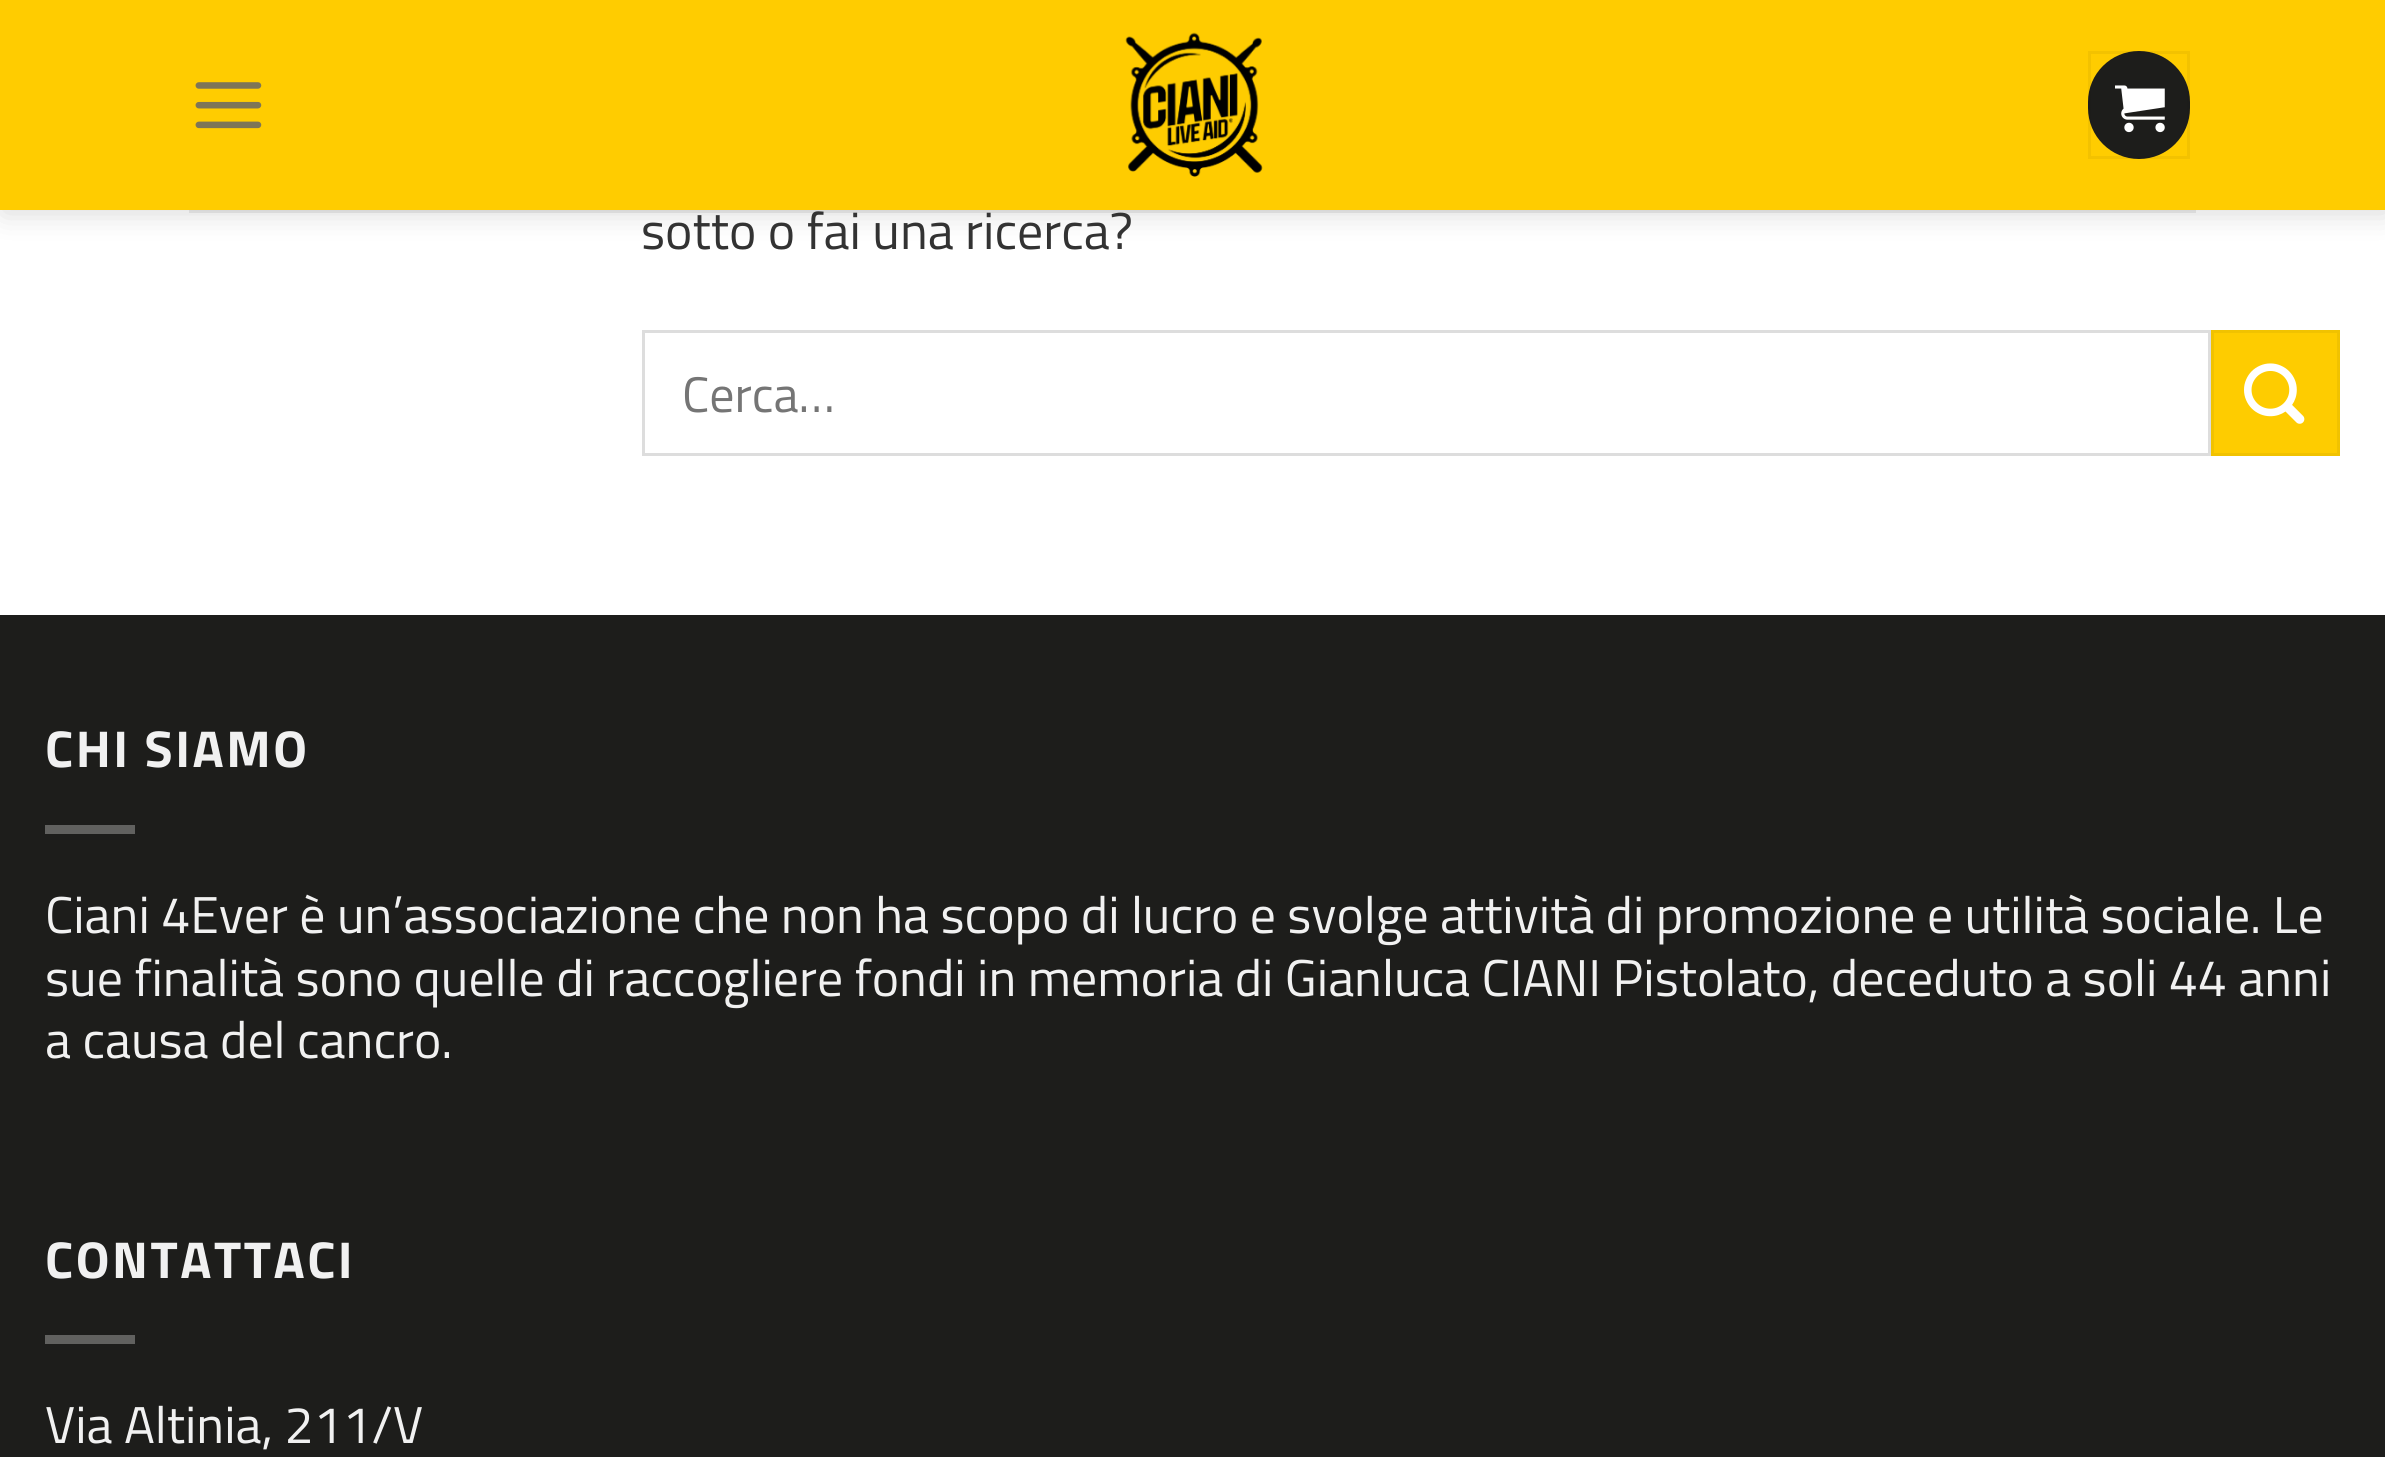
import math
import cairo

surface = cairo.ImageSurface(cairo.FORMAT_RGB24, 2385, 1457)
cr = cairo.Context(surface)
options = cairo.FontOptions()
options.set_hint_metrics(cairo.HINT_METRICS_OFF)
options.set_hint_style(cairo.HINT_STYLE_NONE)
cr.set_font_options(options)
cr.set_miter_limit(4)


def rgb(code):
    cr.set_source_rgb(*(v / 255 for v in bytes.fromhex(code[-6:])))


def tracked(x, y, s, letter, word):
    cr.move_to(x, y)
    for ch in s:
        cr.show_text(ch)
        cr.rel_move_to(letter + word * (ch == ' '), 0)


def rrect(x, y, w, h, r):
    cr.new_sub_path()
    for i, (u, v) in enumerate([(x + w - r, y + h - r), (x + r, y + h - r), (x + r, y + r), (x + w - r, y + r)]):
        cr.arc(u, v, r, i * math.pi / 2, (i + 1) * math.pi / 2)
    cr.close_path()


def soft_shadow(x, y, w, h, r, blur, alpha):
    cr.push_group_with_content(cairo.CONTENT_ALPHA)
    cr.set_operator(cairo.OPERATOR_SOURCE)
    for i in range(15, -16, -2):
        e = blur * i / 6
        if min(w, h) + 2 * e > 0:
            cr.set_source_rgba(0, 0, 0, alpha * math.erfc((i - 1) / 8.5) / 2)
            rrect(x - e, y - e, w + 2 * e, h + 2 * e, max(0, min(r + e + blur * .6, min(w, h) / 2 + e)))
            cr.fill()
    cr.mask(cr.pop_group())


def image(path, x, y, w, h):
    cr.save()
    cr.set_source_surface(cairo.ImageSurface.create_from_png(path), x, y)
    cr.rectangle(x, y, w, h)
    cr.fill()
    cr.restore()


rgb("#ffffff")
cr.paint()
rgb("#000000")
soft_shadow(3, 3, 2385, 210, 0, 15, 0.15)
rgb("#ffcc00")
cr.rectangle(0, 0, 2385, 210)
cr.fill()
image("img/1.png", 195, 82, 67, 47)
image("img/2.png", 1125, 32, 138, 145)
rgb("#1d1d1b")
rrect(2088, 51, 102, 108, 51)
cr.fill()
cr.rectangle(2089.5, 52.5, 99, 105)
cr.set_source_rgba(0, 0, 0, 0.05)
cr.set_line_width(3)
cr.stroke()
image("img/3.png", 2115, 85, 50, 48)
cr.set_source_rgba(0.2, 0.2, 0.2, 0.1)
cr.rectangle(189, 210, 2007, 3)
cr.fill()
cr.rectangle(643.5, 331.5, 1566, 123)
rgb("#dddddd")
cr.stroke()
rgb("#fecc00")
cr.rectangle(2212.5, 331.5, 126, 123)
cr.fill_preserve()
rgb("#f1c200")
cr.stroke()
image("img/4.png", 2244, 363, 61, 61)
for x, y, w, h, color in [
    (0, 615, 2385, 842, "#1d1d1b"),
    (45, 825, 90, 9, "#61615f"),
    (45, 1335, 90, 9, "#61615f"),
]:
    rgb(color)
    cr.rectangle(x, y, w, h)
    cr.fill()
cr.select_font_face("Titillium Web")
cr.set_font_size(51.85)
rgb("#333333")
cr.move_to(641, 249)
cr.show_text("sotto o fai una ricerca?")
cr.set_font_size(50)
rgb("#757575")
cr.move_to(682, 412)
cr.show_text("Cerca…")
cr.select_font_face("Titillium Web", cairo.FONT_SLANT_NORMAL, cairo.FONT_WEIGHT_BOLD)
cr.set_font_size(51.85)
rgb("#f1f1f1")
tracked(45, 767, "CHI SIAMO", 2.5, 0)
cr.select_font_face("Titillium Web")
for x, y, s in [
    (45, 933, "Ciani 4Ever è un’associazione che non ha scopo di lucro e svolge attività di promozione e utilità sociale. Le"),
    (45, 996, "sue finalità sono quelle di raccogliere fondi in memoria di Gianluca CIANI Pistolato, deceduto a soli 44 anni"),
    (45, 1058, "a causa del cancro."),
]:
    cr.move_to(x, y)
    cr.show_text(s)
cr.select_font_face("Titillium Web", cairo.FONT_SLANT_NORMAL, cairo.FONT_WEIGHT_BOLD)
tracked(45, 1278, "CONTATTACI", 2.5, 0)
cr.select_font_face("Titillium Web")
cr.move_to(45, 1443)
cr.show_text("Via Altinia, 211/V")
surface.write_to_png("page.png")
